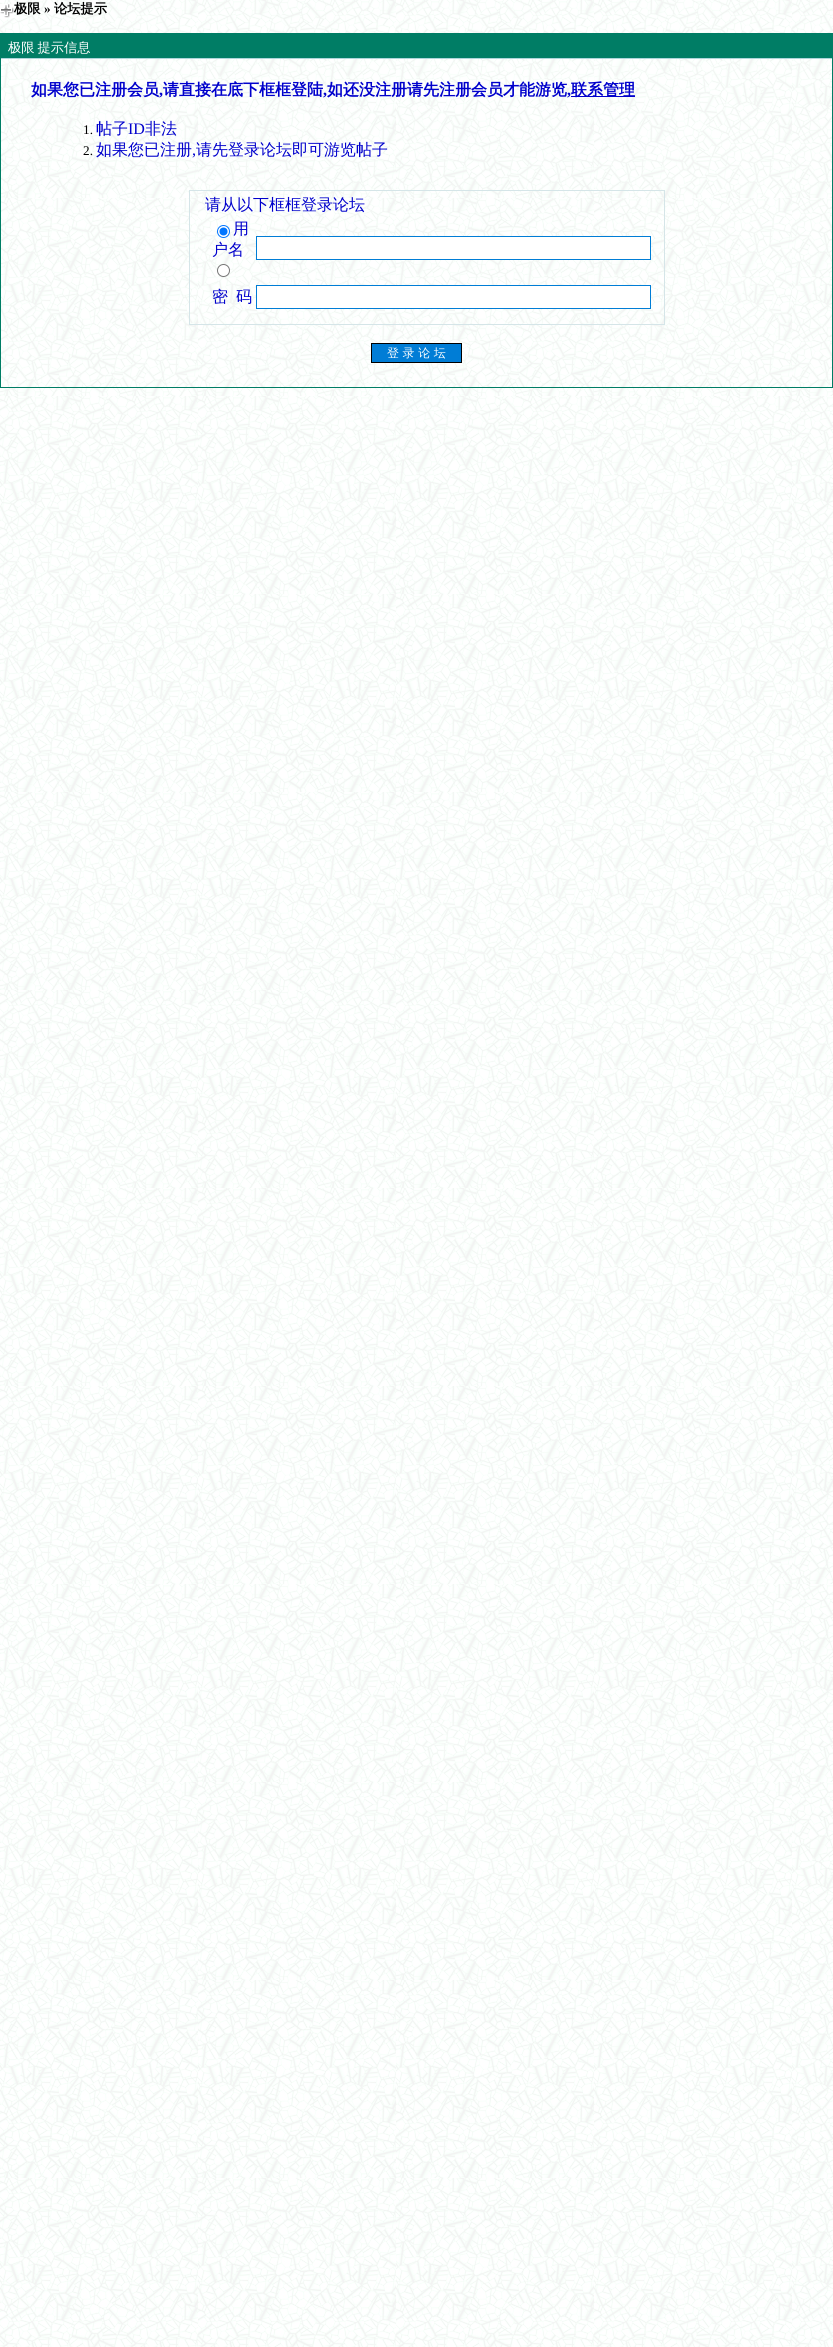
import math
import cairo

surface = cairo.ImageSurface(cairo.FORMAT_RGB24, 833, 2347)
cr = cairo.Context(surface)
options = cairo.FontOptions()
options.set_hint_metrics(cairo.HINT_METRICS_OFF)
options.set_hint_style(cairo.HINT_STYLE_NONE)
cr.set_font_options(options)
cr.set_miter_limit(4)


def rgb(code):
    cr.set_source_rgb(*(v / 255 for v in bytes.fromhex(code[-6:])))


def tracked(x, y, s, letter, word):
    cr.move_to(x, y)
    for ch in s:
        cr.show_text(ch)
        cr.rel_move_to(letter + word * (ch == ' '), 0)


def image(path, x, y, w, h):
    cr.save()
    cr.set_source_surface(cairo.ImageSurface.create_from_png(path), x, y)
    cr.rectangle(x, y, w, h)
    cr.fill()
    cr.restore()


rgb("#ffffff")
cr.paint()
image("img/1.png", 0, 0, 833, 2347)
image("img/2.png", 0, 4, 14, 14)
cr.rectangle(0.5, 33.5, 832, 354)
rgb("#007d65")
cr.set_line_width(1)
cr.stroke()
for x, y, w, h, color in [
    (1, 34, 831, 24, "#007d65"),
    (1, 58, 831, 1, "#aed6db"),
    (571, 96, 64, 1, "#0000cc"),
]:
    rgb(color)
    cr.rectangle(x, y, w, h)
    cr.fill()
cr.rectangle(189.5, 190.5, 475, 134)
rgb("#d5e5e8")
cr.stroke()
rgb("#ffffff")
cr.arc(223.5, 231.5, 6, 0, 2 * math.pi)
cr.fill_preserve()
rgb("#0075ff")
cr.stroke()
cr.arc(223.5, 231.5, 4, 0, 2 * math.pi)
cr.fill()
rgb("#ffffff")
cr.arc(223.5, 270.5, 6, 0, 2 * math.pi)
cr.fill_preserve()
rgb("#767676")
cr.stroke()
rgb("#ffffff")
cr.rectangle(256.5, 236.5, 394, 23)
cr.fill_preserve()
rgb("#007dd6")
cr.stroke()
rgb("#ffffff")
cr.rectangle(256.5, 285.5, 394, 23)
cr.fill_preserve()
rgb("#007dd6")
cr.stroke()
cr.rectangle(371.5, 343.5, 90, 19)
cr.fill_preserve()
rgb("#000000")
cr.stroke()
cr.select_font_face("WenQuanYi Zen Hei", cairo.FONT_SLANT_NORMAL, cairo.FONT_WEIGHT_BOLD)
cr.set_font_size(13.25)
cr.move_to(14, 13)
cr.show_text("极限")
cr.select_font_face("Liberation Serif", cairo.FONT_SLANT_NORMAL, cairo.FONT_WEIGHT_BOLD)
cr.move_to(44, 13)
cr.show_text("»")
cr.select_font_face("WenQuanYi Zen Hei", cairo.FONT_SLANT_NORMAL, cairo.FONT_WEIGHT_BOLD)
cr.move_to(54, 13)
cr.show_text("论坛提示")
cr.select_font_face("WenQuanYi Zen Hei Medium")
rgb("#ffffff")
tracked(8, 52, "极限 提示信息", 0, -1)
cr.select_font_face("WenQuanYi Zen Hei", cairo.FONT_SLANT_NORMAL, cairo.FONT_WEIGHT_BOLD)
cr.set_font_size(16)
rgb("#0000cc")
cr.move_to(31, 95)
cr.show_text("如果您已注册会员")
cr.select_font_face("Liberation Serif", cairo.FONT_SLANT_NORMAL, cairo.FONT_WEIGHT_BOLD)
cr.move_to(159, 95)
cr.show_text(",")
cr.select_font_face("WenQuanYi Zen Hei", cairo.FONT_SLANT_NORMAL, cairo.FONT_WEIGHT_BOLD)
cr.move_to(163, 95)
cr.show_text("请直接在底下框框登陆")
cr.select_font_face("Liberation Serif", cairo.FONT_SLANT_NORMAL, cairo.FONT_WEIGHT_BOLD)
cr.move_to(323, 95)
cr.show_text(",")
cr.select_font_face("WenQuanYi Zen Hei", cairo.FONT_SLANT_NORMAL, cairo.FONT_WEIGHT_BOLD)
cr.move_to(327, 95)
cr.show_text("如还没注册请先注册会员才能游览")
cr.select_font_face("Liberation Serif", cairo.FONT_SLANT_NORMAL, cairo.FONT_WEIGHT_BOLD)
cr.move_to(567, 95)
cr.show_text(",")
cr.select_font_face("WenQuanYi Zen Hei", cairo.FONT_SLANT_NORMAL, cairo.FONT_WEIGHT_BOLD)
cr.move_to(571, 95)
cr.show_text("联系管理")
cr.select_font_face("Liberation Serif")
cr.set_font_size(13.25)
rgb("#000000")
cr.move_to(83, 134)
cr.show_text("1.")
cr.select_font_face("WenQuanYi Zen Hei Medium")
cr.set_font_size(16)
rgb("#0000cc")
cr.move_to(96, 134)
cr.show_text("帖子")
cr.select_font_face("Liberation Serif")
cr.move_to(128, 134)
cr.show_text("ID")
cr.select_font_face("WenQuanYi Zen Hei Medium")
cr.move_to(145, 134)
cr.show_text("非法")
cr.select_font_face("Liberation Serif")
cr.set_font_size(13.25)
rgb("#000000")
cr.move_to(83, 155)
cr.show_text("2.")
cr.select_font_face("WenQuanYi Zen Hei Medium")
cr.set_font_size(16)
rgb("#0000cc")
cr.move_to(96, 155)
cr.show_text("如果您已注册")
cr.select_font_face("Liberation Serif")
cr.move_to(192, 155)
cr.show_text(",")
cr.select_font_face("WenQuanYi Zen Hei Medium")
for x, y, s in [
    (196, 155, "请先登录论坛即可游览帖子"),
    (205, 210, "请从以下框框登录论坛"),
    (233, 234, "用"),
    (212, 255, "户名"),
    (212, 302, "密"),
    (236, 302, "码"),
]:
    cr.move_to(x, y)
    cr.show_text(s)
cr.set_font_size(12)
rgb("#ffffff")
cr.move_to(387, 357)
cr.show_text("登 录 论 坛")
surface.write_to_png("page.png")
